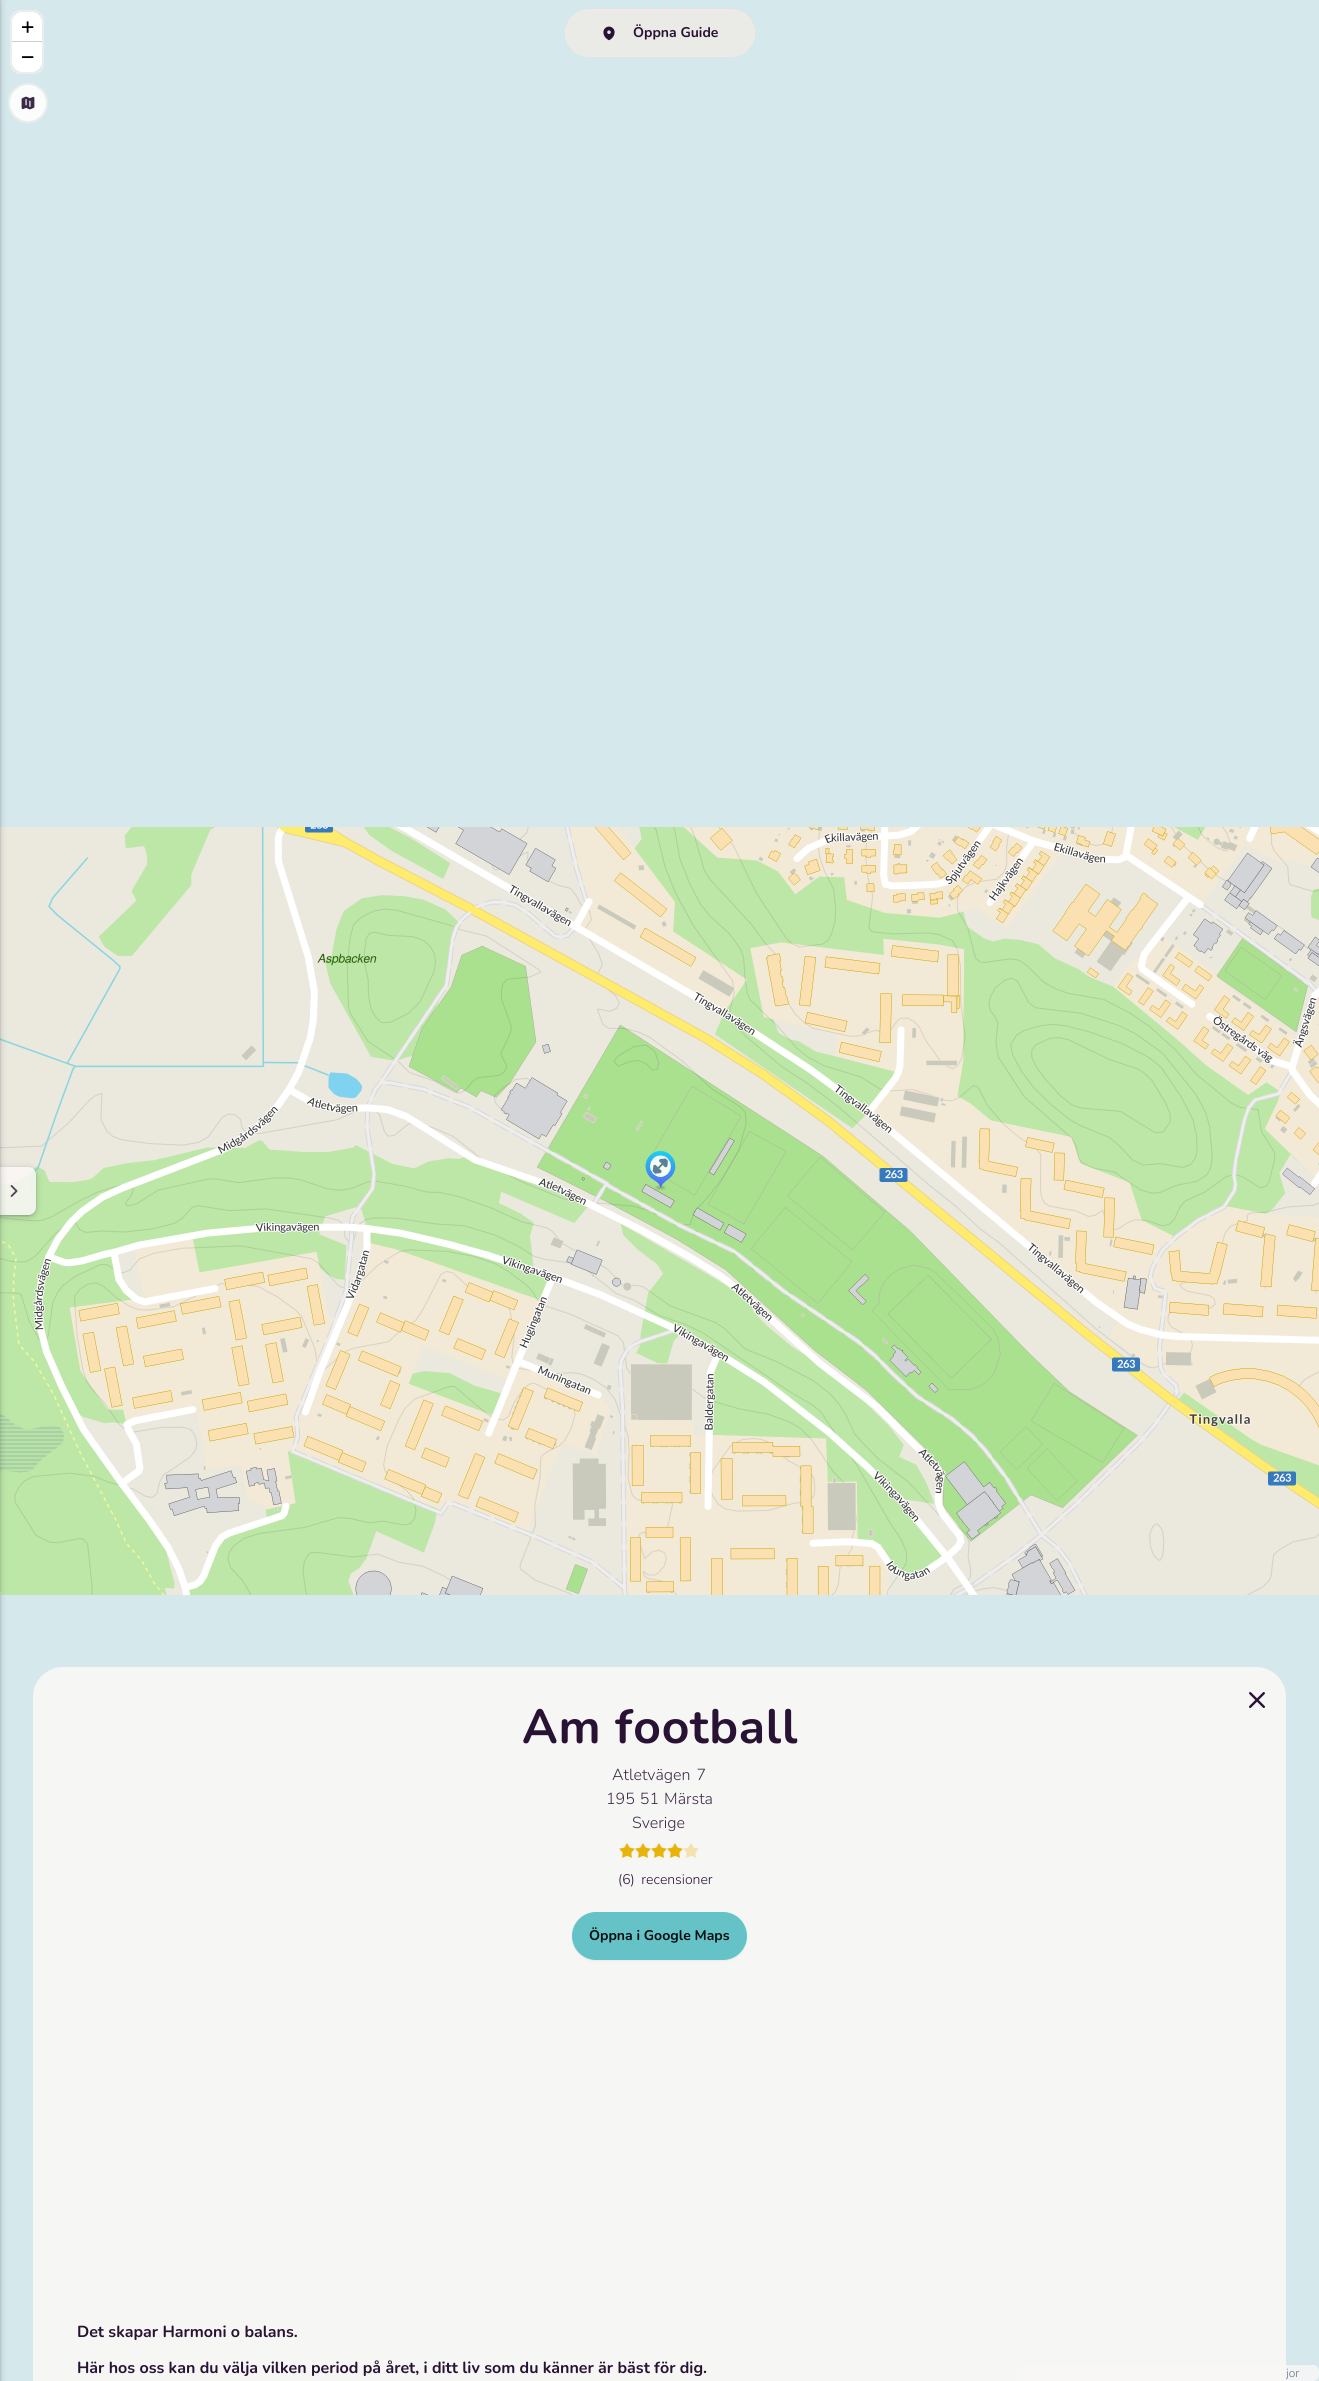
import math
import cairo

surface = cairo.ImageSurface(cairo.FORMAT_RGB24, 1319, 2381)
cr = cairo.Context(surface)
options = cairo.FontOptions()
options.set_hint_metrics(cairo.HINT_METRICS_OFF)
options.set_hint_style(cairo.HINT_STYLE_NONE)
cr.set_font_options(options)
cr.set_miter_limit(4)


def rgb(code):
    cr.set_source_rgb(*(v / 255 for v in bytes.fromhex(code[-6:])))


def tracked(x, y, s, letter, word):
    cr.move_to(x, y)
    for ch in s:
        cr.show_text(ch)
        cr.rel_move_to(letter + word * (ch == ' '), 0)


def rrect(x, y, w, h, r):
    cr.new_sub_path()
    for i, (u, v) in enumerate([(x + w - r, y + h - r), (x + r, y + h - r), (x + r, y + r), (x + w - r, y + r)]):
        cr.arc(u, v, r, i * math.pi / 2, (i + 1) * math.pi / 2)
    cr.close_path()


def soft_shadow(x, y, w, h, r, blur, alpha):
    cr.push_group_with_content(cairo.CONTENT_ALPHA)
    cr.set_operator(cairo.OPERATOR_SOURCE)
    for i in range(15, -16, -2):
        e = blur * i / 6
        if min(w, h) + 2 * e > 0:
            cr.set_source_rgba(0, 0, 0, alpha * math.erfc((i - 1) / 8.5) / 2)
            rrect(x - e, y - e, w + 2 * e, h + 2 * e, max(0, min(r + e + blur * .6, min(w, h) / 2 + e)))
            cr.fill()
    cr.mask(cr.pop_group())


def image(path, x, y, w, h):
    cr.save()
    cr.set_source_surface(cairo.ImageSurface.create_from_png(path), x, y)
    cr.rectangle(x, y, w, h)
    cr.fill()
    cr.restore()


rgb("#d5e8eb")
cr.paint()
image("img/8.png", 0, 1083, 136, 256)
cr.save()
cr.set_fill_rule(cairo.FILL_RULE_EVEN_ODD)
cr.new_path()
cr.move_to(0, 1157)
cr.line_to(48, 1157)
cr.line_to(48, 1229)
cr.line_to(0, 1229)
cr.close_path()
cr.move_to(-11, 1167)
cr.line_to(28, 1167)
cr.curve_to(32.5, 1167, 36, 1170.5, 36, 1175)
cr.line_to(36, 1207)
cr.curve_to(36, 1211.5, 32.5, 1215, 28, 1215)
cr.line_to(-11, 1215)
cr.close_path()
cr.clip()
rgb("#3c4043")
soft_shadow(-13, 1167, 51, 52, 10, 3, 0.15)
cr.restore()
cr.save()
cr.set_fill_rule(cairo.FILL_RULE_EVEN_ODD)
cr.new_path()
cr.move_to(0, 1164)
cr.line_to(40, 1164)
cr.line_to(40, 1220)
cr.line_to(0, 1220)
cr.close_path()
cr.move_to(-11, 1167)
cr.line_to(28, 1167)
cr.curve_to(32.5, 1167, 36, 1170.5, 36, 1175)
cr.line_to(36, 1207)
cr.curve_to(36, 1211.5, 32.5, 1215, 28, 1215)
cr.line_to(-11, 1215)
cr.close_path()
cr.clip()
rgb("#3c4043")
soft_shadow(-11, 1168, 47, 48, 8, 1, 0.3)
cr.restore()
cr.set_source_rgba(0.98, 0.969, 0.961, 0.85)
cr.new_path()
cr.move_to(-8, 1167)
cr.line_to(28, 1167)
cr.curve_to(32.5, 1167, 36, 1170.5, 36, 1175)
cr.line_to(36, 1207)
cr.curve_to(36, 1211.5, 32.5, 1215, 28, 1215)
cr.line_to(-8, 1215)
cr.close_path()
cr.fill()
image("img/1.png", 10, 1185, 8, 12)
rrect(11, 11, 32, 62, 9)
rgb("#ededed")
cr.stroke()
image("img/2.png", 0, 827, 136, 256)
image("img/14.png", 0, 1339, 136, 256)
rgb("#fbfdfd")
cr.arc(28, 103, 19, 0, 2 * math.pi)
cr.fill_preserve()
rgb("#ebeded")
cr.stroke()
rgb("#3c4043")
soft_shadow(-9, 0, 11, 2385, 0, 3, 0.15)
soft_shadow(-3, 1, 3, 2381, 0, 1, 0.3)
rgb("#ffffff")
cr.new_path()
cr.move_to(22, 12)
cr.line_to(32, 12)
cr.curve_to(37.5, 12, 42, 16.5, 42, 22)
cr.line_to(42, 41)
cr.line_to(12, 41)
cr.line_to(12, 22)
cr.curve_to(12, 16.5, 16.5, 12, 22, 12)
cr.close_path()
cr.fill()
rgb("#cccccc")
cr.rectangle(12, 41, 30, 1)
cr.fill()
rgb("#ffffff")
cr.new_path()
cr.move_to(12, 42)
cr.line_to(42, 42)
cr.line_to(42, 62)
cr.curve_to(42, 67.5, 37.5, 72, 32, 72)
cr.line_to(22, 72)
cr.curve_to(16.5, 72, 12, 67.5, 12, 62)
cr.close_path()
cr.fill()
image("img/3.png", 136, 827, 256, 256)
image("img/4.png", 392, 827, 256, 256)
image("img/5.png", 648, 827, 256, 256)
image("img/6.png", 904, 827, 256, 256)
image("img/7.png", 1160, 827, 159, 256)
image("img/9.png", 136, 1083, 256, 256)
image("img/10.png", 392, 1083, 256, 256)
image("img/11.png", 648, 1083, 256, 256)
image("img/12.png", 904, 1083, 256, 256)
image("img/13.png", 1160, 1083, 159, 256)
image("img/15.png", 136, 1339, 256, 256)
image("img/16.png", 392, 1339, 256, 256)
image("img/17.png", 648, 1339, 256, 256)
image("img/18.png", 904, 1339, 256, 256)
image("img/19.png", 1160, 1339, 159, 256)
image("img/20.png", 645, 1151, 31, 40)
image("img/21.png", 21, 96, 14, 14)
cr.set_source_rgba(0.937, 0.918, 0.902, 0.8)
rrect(566, 10, 188, 46, 23)
cr.fill_preserve()
rgb("#efeae6")
cr.stroke()
image("img/25.png", 603, 26, 12, 15)
rgb("#f3f4f6")
rrect(1016, 2365, 303, 16, 6)
cr.fill()
cr.select_font_face("DejaVu Sans Mono")
cr.set_font_size(22)
rgb("#000000")
cr.move_to(21, 34)
cr.show_text("+")
cr.move_to(21, 64)
cr.show_text("−")
cr.select_font_face("Nunito", cairo.FONT_SLANT_NORMAL, cairo.FONT_WEIGHT_BOLD)
cr.set_font_size(14)
rgb("#291334")
cr.move_to(633, 37)
cr.show_text("Öppna Guide")
cr.select_font_face("Nunito Light")
cr.set_font_size(12)
rgb("#64748b")
tracked(1286, 2377, "jor", 0, 2)
cr.set_source_rgba(0.98, 0.969, 0.961, 0.9)
cr.new_path()
cr.move_to(63, 1667)
cr.line_to(1256, 1667)
cr.curve_to(1272.5, 1667, 1286, 1680.5, 1286, 1697)
cr.line_to(1286, 2381)
cr.line_to(33, 2381)
cr.line_to(33, 1697)
cr.curve_to(33, 1680.5, 46.5, 1667, 63, 1667)
cr.close_path()
cr.fill()
image("img/22.png", 1249, 1692, 16, 16)
cr.select_font_face("Nunito", cairo.FONT_SLANT_NORMAL, cairo.FONT_WEIGHT_BOLD)
cr.set_font_size(16)
rgb("#291334")
cr.move_to(77, 2373)
cr.show_text("Här hos oss kan du välja vilken period på året, i ditt liv som du känner är bäst för dig.")
cr.move_to(77, 2337)
cr.show_text("Det skapar Harmoni o balans.")
rgb("#000000")
soft_shadow(572, 1913, 175, 48, 24, 1, 0.05)
rgb("#65c3c8")
rrect(572.5, 1912.5, 174, 47, 23.5)
cr.fill_preserve()
cr.set_line_width(1)
cr.stroke()
cr.set_font_size(14)
rgb("#030e0f")
cr.move_to(589, 1940)
cr.show_text("Öppna i Google Maps")
cr.select_font_face("Nunito Light")
rgb("#291334")
tracked(618, 1884, "(6) recensioner", 0, 3)
image("img/24.png", 683, 1843, 16, 15)
image("img/23.png", 667, 1843, 16, 15)
image("img/23.png", 651, 1843, 16, 15)
image("img/23.png", 635, 1843, 16, 15)
image("img/23.png", 619, 1843, 16, 15)
cr.set_font_size(16)
rgb("#3e2a47")
cr.move_to(632, 1828)
cr.show_text("Sverige")
tracked(606, 1804, "195 51 Märsta", 0, 1)
tracked(612, 1780, "Atletvägen 7", 0, 2)
cr.select_font_face("Nunito", cairo.FONT_SLANT_NORMAL, cairo.FONT_WEIGHT_BOLD)
cr.set_font_size(48)
rgb("#291334")
tracked(522, 1743, "Am football", 0.75, 0)
surface.write_to_png("page.png")
